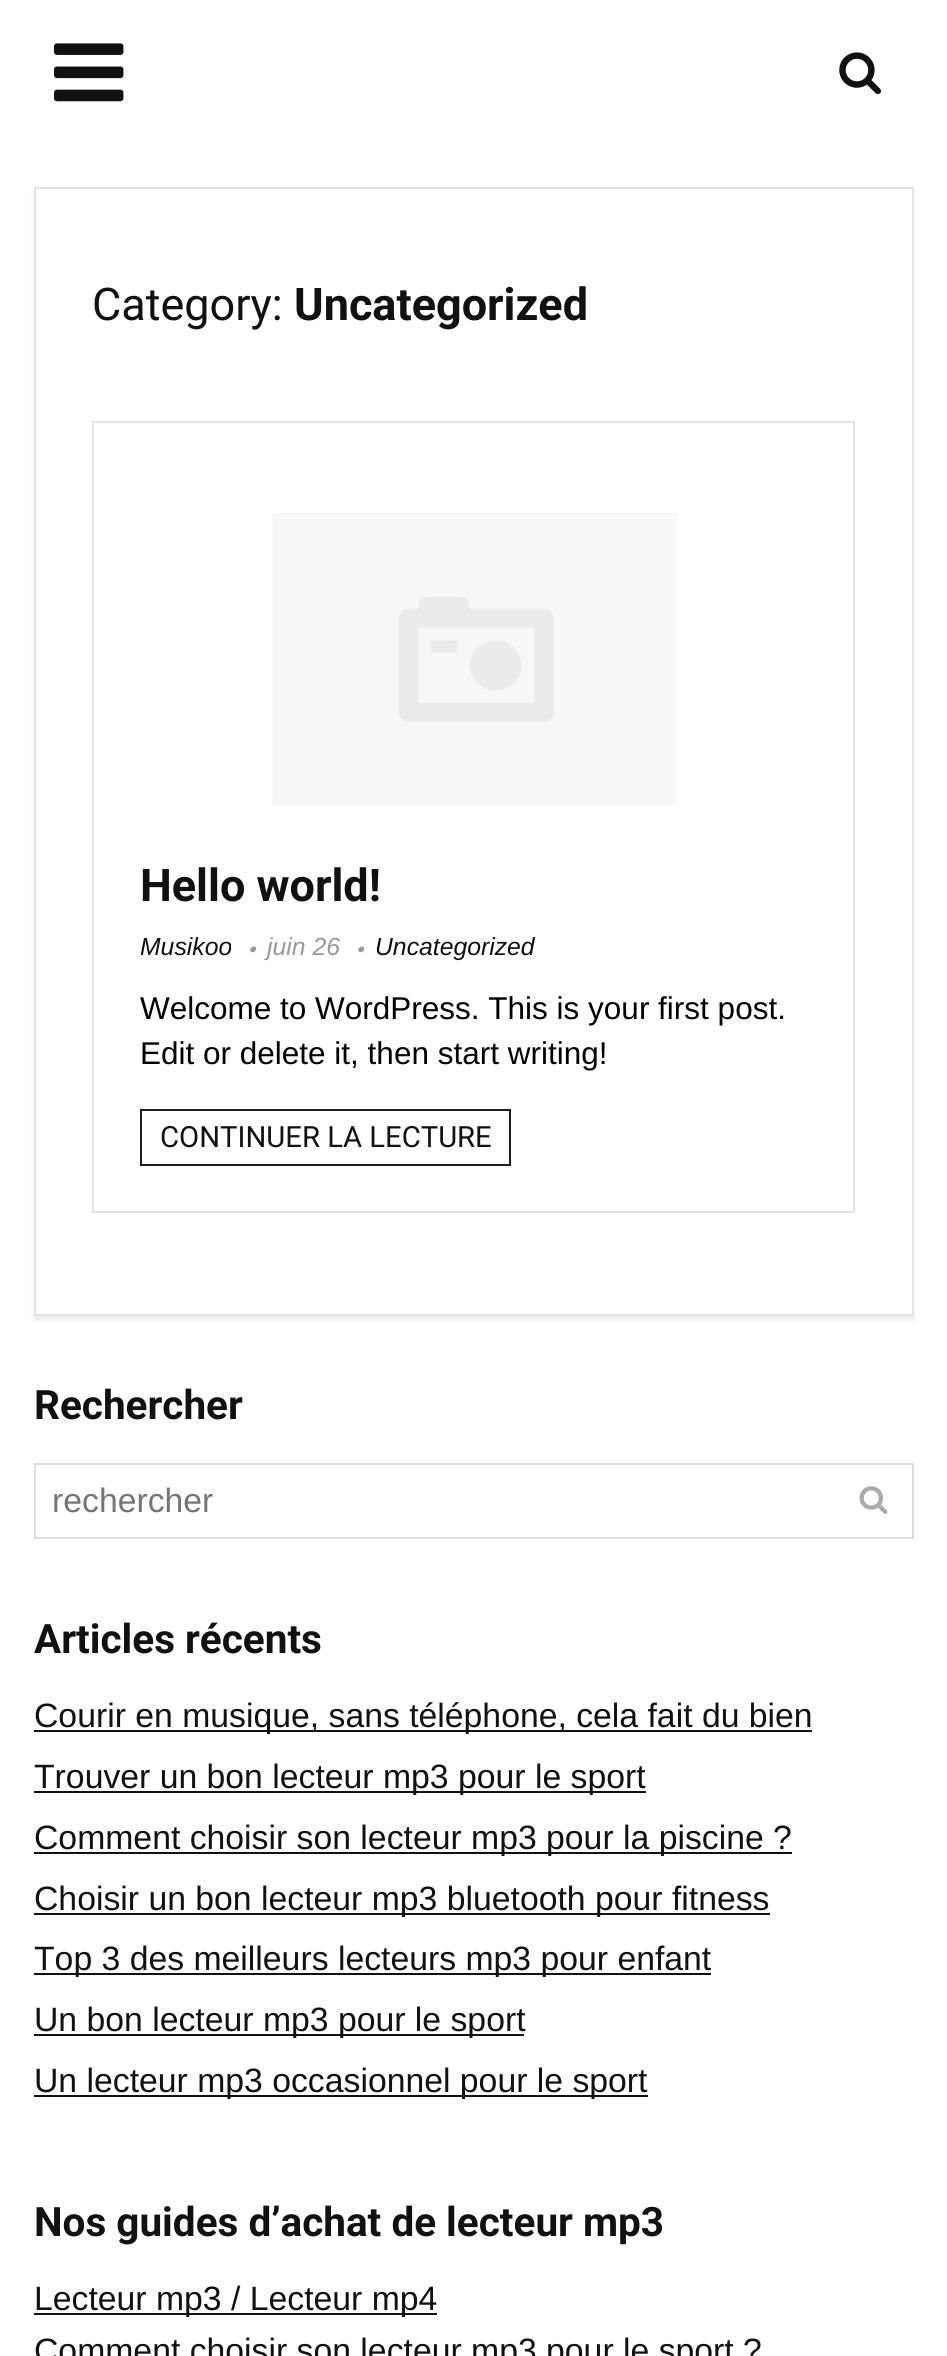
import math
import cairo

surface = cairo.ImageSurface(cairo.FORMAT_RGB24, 947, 2356)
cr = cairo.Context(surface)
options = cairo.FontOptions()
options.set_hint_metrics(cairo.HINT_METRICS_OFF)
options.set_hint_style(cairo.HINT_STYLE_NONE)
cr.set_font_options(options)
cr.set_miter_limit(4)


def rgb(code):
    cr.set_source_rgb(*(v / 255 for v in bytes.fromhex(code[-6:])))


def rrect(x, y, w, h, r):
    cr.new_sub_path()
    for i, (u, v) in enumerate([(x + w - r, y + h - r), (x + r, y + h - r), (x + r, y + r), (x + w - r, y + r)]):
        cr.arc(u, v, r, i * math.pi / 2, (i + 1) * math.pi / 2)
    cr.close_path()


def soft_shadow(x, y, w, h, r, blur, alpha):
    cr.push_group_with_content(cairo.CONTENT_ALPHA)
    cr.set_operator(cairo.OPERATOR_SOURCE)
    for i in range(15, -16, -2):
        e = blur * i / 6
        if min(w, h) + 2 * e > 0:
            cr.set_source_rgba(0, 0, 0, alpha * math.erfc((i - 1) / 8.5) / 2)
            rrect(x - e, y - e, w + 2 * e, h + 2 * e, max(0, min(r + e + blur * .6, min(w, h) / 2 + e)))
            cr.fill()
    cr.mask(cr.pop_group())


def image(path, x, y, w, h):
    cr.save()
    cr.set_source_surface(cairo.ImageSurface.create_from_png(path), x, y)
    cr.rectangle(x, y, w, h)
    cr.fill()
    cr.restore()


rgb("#ffffff")
cr.paint()
image("img/1.png", 54, 43, 70, 59)
image("img/2.png", 839, 52, 42, 43)
rgb("#ececec")
soft_shadow(34, 191, 880, 1130, 0, 2, 1)
rgb("#ffffff")
cr.rectangle(35, 188, 878, 1127)
cr.fill_preserve()
rgb("#e3e3e3")
cr.stroke()
cr.rectangle(93, 422, 761, 790)
cr.stroke()
image("img/3.png", 272, 513, 405, 293)
image("img/4.png", 250, 946, 7, 7)
image("img/4.png", 358, 946, 7, 7)
cr.rectangle(141, 1110, 369, 55)
rgb("#1e1e1e")
cr.stroke()
cr.rectangle(35, 1464, 878, 74)
rgb("#dddddd")
cr.stroke()
image("img/5.png", 859, 1486, 29, 28)
for x, y, w, h, color in [
    (34, 1730, 778, 2, "#111111"),
    (34, 1791, 612, 2, "#111111"),
    (34, 1852, 758, 2, "#111111"),
    (34, 1913, 736, 2, "#111111"),
    (34, 1973, 677, 2, "#111111"),
    (34, 2034, 490, 2, "#111111"),
    (34, 2095, 614, 2, "#111111"),
    (34, 2313, 403, 2, "#111111"),
]:
    rgb(color)
    cr.rectangle(x, y, w, h)
    cr.fill()
cr.select_font_face("Roboto")
cr.set_font_size(45)
cr.move_to(92, 320)
cr.show_text("Category:")
cr.select_font_face("Roboto", cairo.FONT_SLANT_NORMAL, cairo.FONT_WEIGHT_BOLD)
cr.move_to(294, 320)
cr.show_text("Uncategorized")
cr.move_to(140, 901)
cr.show_text("Hello world!")
cr.select_font_face("Liberation Sans", cairo.FONT_SLANT_ITALIC)
cr.set_font_size(24.75)
cr.move_to(140, 955)
cr.show_text("Musikoo")
rgb("#999999")
cr.move_to(267, 955)
cr.show_text("juin 26")
rgb("#111111")
cr.move_to(375, 955)
cr.show_text("Uncategorized")
cr.select_font_face("Liberation Sans")
cr.set_font_size(31.5)
rgb("#000000")
cr.move_to(140, 1019)
cr.show_text("Welcome to WordPress. This is your first post.")
cr.move_to(140, 1064)
cr.show_text("Edit or delete it, then start writing!")
cr.select_font_face("Roboto")
cr.set_font_size(29.25)
rgb("#111111")
cr.move_to(160, 1147)
cr.show_text("CONTINUER LA LECTURE")
cr.select_font_face("Roboto", cairo.FONT_SLANT_NORMAL, cairo.FONT_WEIGHT_BOLD)
cr.set_font_size(40.5)
cr.move_to(34, 1419)
cr.show_text("Rechercher")
cr.select_font_face("Liberation Sans")
cr.set_font_size(33.75)
rgb("#757575")
cr.move_to(52, 1512)
cr.show_text("rechercher")
cr.select_font_face("Roboto", cairo.FONT_SLANT_NORMAL, cairo.FONT_WEIGHT_BOLD)
cr.set_font_size(40.5)
rgb("#111111")
cr.move_to(34, 1653)
cr.show_text("Articles récents")
cr.select_font_face("Liberation Sans")
cr.set_font_size(33.75)
for x, y, s in [
    (34, 1727, "Courir en musique, sans téléphone, cela fait du bien"),
    (34, 1788, "Trouver un bon lecteur mp3 pour le sport"),
    (34, 1849, "Comment choisir son lecteur mp3 pour la piscine ?"),
    (34, 1910, "Choisir un bon lecteur mp3 bluetooth pour fitness"),
    (34, 1970, "Top 3 des meilleurs lecteurs mp3 pour enfant"),
    (34, 2031, "Un bon lecteur mp3 pour le sport"),
    (34, 2092, "Un lecteur mp3 occasionnel pour le sport"),
]:
    cr.move_to(x, y)
    cr.show_text(s)
cr.select_font_face("Roboto", cairo.FONT_SLANT_NORMAL, cairo.FONT_WEIGHT_BOLD)
cr.set_font_size(40.5)
cr.move_to(34, 2236)
cr.show_text("Nos guides d’achat de lecteur mp3")
cr.select_font_face("Liberation Sans")
cr.set_font_size(33.75)
cr.move_to(34, 2310)
cr.show_text("Lecteur mp3 / Lecteur mp4")
cr.move_to(34, 2362)
cr.show_text("Comment choisir son lecteur mp3 pour le sport ?")
surface.write_to_png("page.png")
